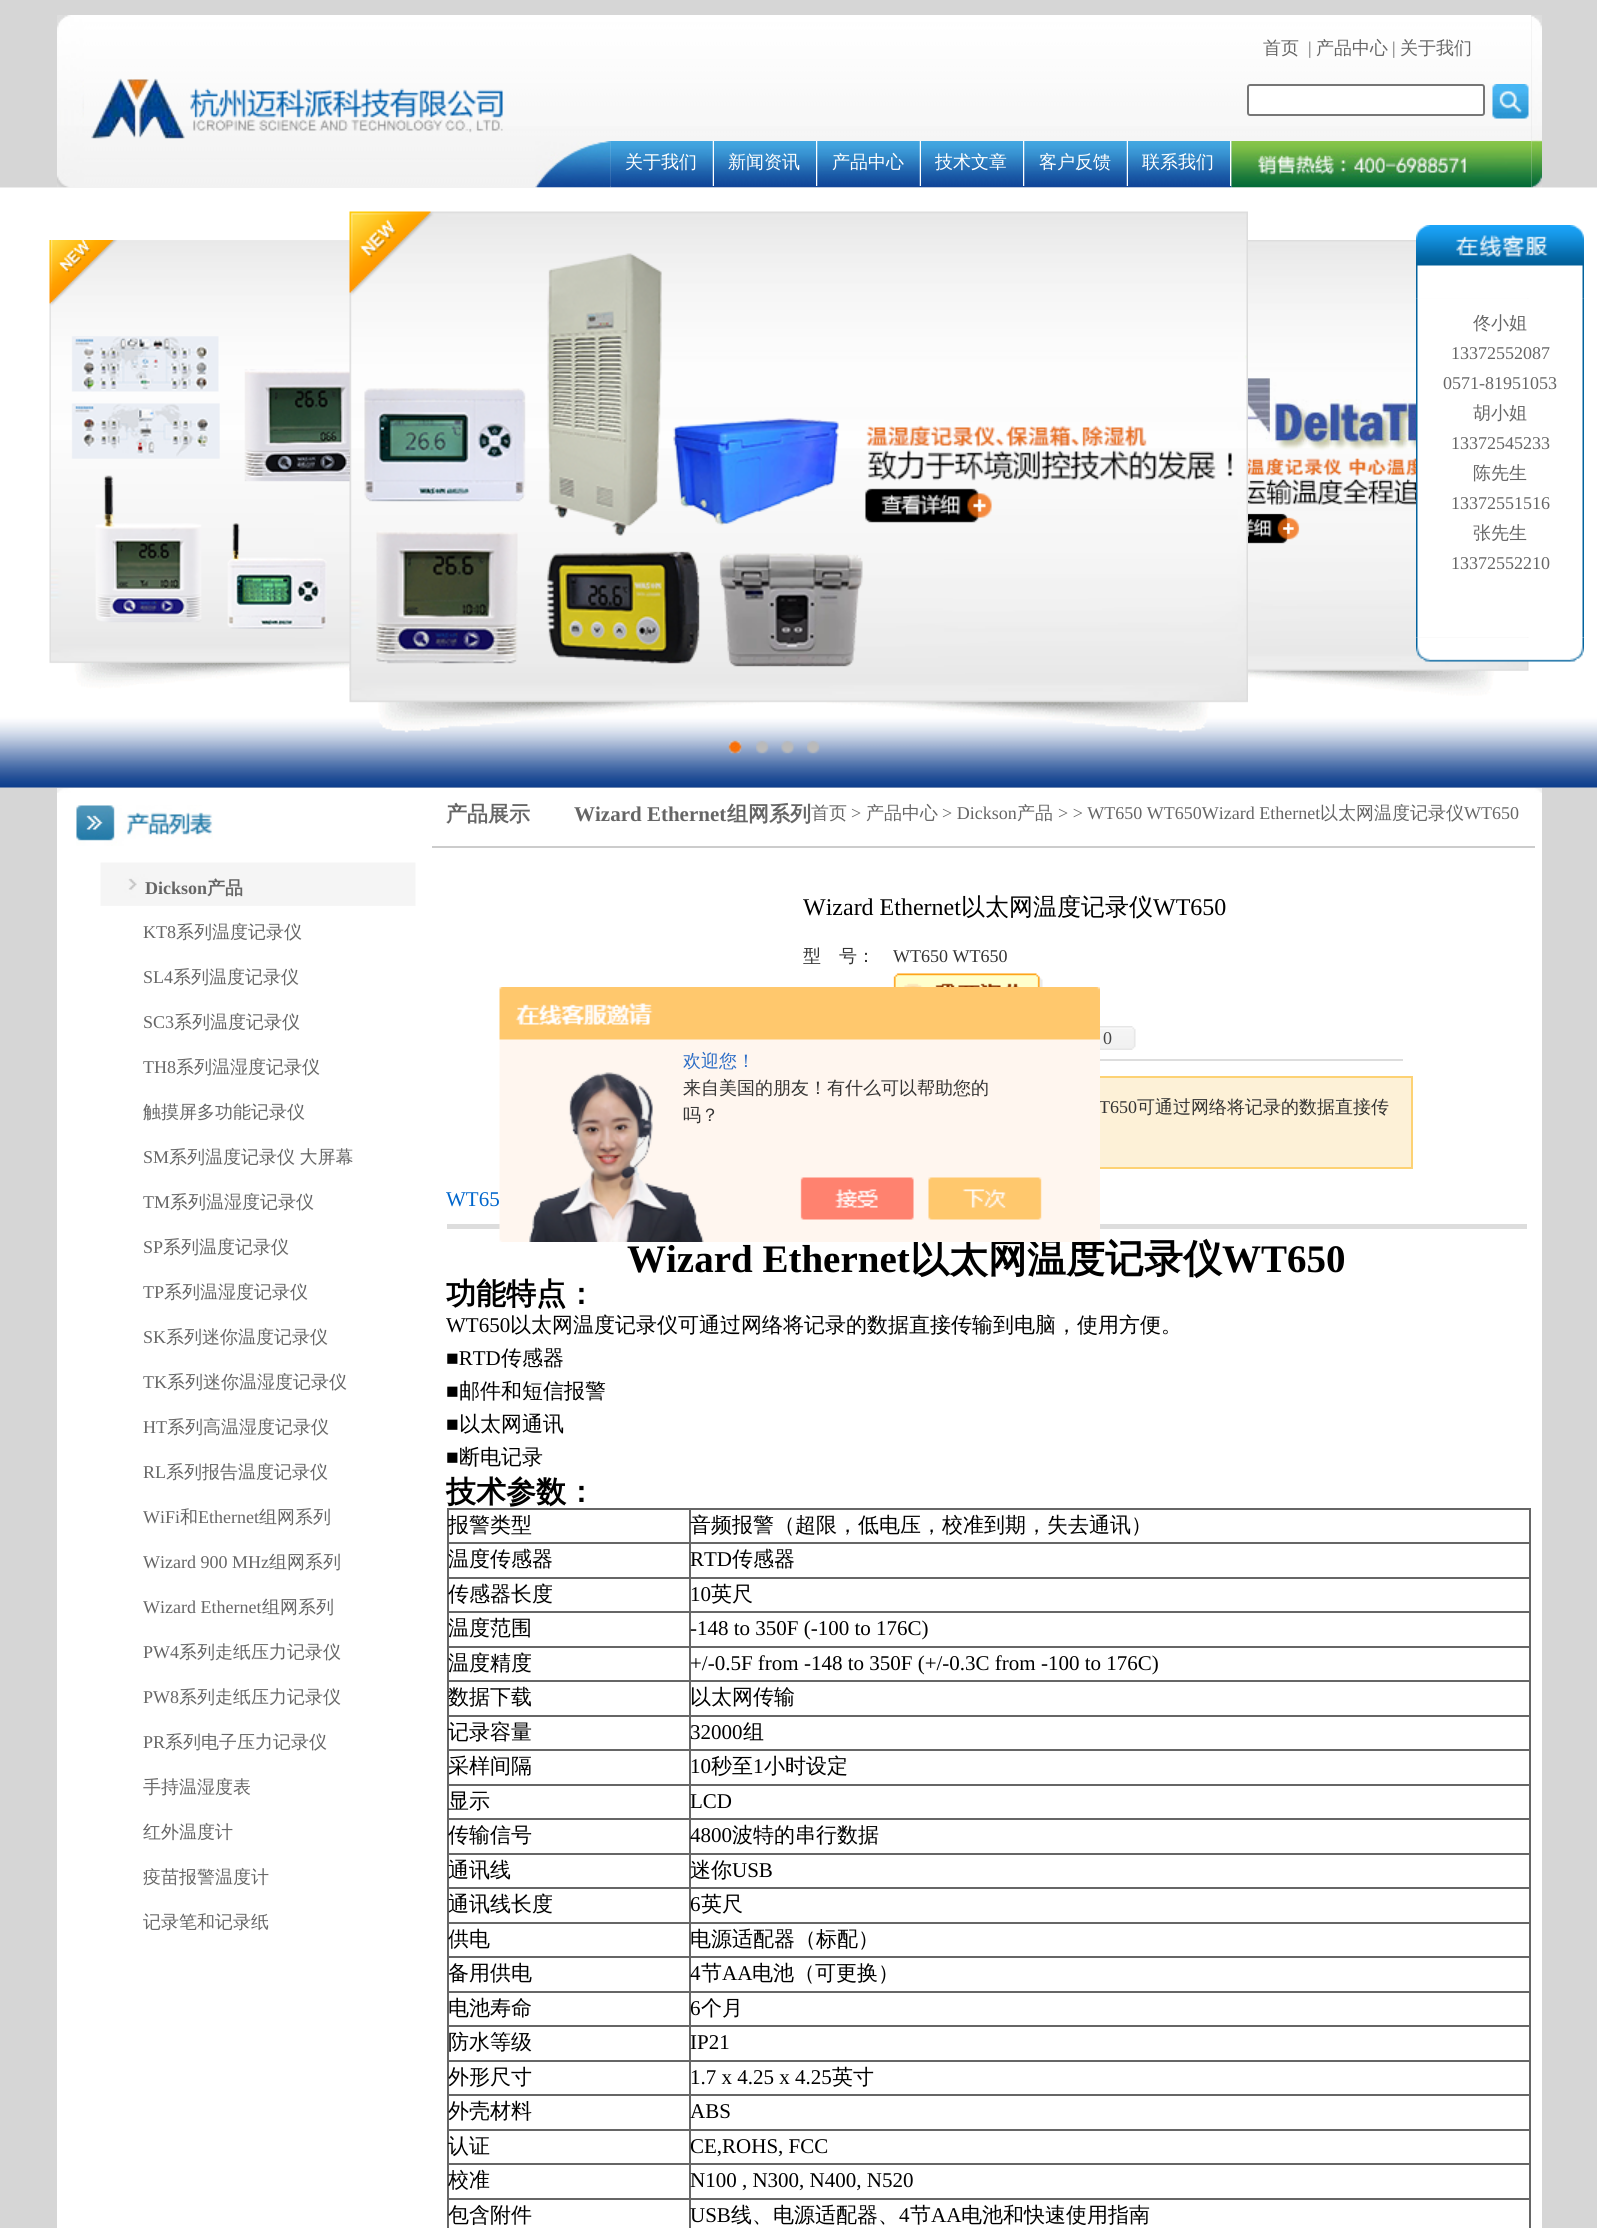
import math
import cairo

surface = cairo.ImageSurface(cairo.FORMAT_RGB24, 1597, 2228)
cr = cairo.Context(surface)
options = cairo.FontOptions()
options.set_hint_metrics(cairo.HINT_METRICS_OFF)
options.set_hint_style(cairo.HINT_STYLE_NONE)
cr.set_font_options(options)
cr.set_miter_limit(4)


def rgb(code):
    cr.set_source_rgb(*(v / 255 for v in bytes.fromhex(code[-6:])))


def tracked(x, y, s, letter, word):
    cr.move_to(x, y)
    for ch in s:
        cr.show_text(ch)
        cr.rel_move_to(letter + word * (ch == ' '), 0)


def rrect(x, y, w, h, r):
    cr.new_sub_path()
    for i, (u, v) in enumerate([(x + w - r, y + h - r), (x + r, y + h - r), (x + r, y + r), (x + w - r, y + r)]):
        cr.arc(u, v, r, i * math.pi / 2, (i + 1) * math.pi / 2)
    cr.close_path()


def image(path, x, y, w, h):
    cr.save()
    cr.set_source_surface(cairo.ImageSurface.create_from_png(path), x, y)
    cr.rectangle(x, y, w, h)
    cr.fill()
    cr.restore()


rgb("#d6d6d6")
cr.paint()
image("img/1.png", 57, 15, 27, 173)
image("img/2.png", 84, 15, 1448, 173)
image("img/3.png", 91, 78, 412, 61)
rgb("#ffffff")
rrect(1248, 85, 236, 30, 2)
cr.fill_preserve()
rgb("#767676")
cr.stroke()
image("img/4.png", 1492, 84, 37, 35)
image("img/5.png", 535, 141, 76, 47)
image("img/6.png", 610, 141, 622, 47)
image("img/7.png", 712, 141, 2, 45)
image("img/8.png", 610, 141, 103, 45)
image("img/9.png", 816, 141, 2, 45)
image("img/10.png", 919, 141, 2, 45)
image("img/11.png", 817, 141, 103, 45)
image("img/12.png", 1023, 141, 2, 45)
image("img/7.png", 1126, 141, 2, 45)
image("img/13.png", 1024, 141, 103, 45)
image("img/14.png", 1230, 141, 2, 45)
image("img/15.png", 1231, 141, 301, 47)
image("img/16.png", 1531, 15, 11, 173)
rgb("#d3d3d3")
cr.rectangle(0, 787, 1597, 1)
cr.fill()
image("img/17.png", 0, 187, 1597, 601)
image("img/21.png", 349, 666, 1, 5)
image("img/18.png", 49, 240, 301, 449)
image("img/19.png", 349, 211, 899, 522)
image("img/20.png", 1248, 240, 281, 456)
image("img/22.png", 728, 740, 14, 14)
image("img/23.png", 756, 740, 13, 14)
image("img/24.png", 781, 740, 13, 14)
image("img/25.png", 807, 740, 13, 14)
image("img/26.png", 1416, 298, 168, 1)
image("img/28.png", 1416, 298, 168, 340)
image("img/27.png", 1416, 225, 168, 74)
image("img/29.png", 1416, 637, 168, 25)
rgb("#ffffff")
cr.rectangle(57, 793, 1485, 1435)
cr.fill()
image("img/30.png", 57, 788, 1485, 5)
image("img/31.png", 76, 805, 137, 41)
image("img/32.png", 100, 862, 316, 44)
rgb("#cccccc")
cr.rectangle(432, 846, 1103, 2)
cr.fill()
image("img/33.png", 893, 973, 150, 14)
rgb("#dddddd")
cr.rectangle(1100, 1059, 303, 2)
cr.fill()
image("img/34.png", 1100, 1026, 36, 24)
rgb("#fdf1d7")
cr.rectangle(1100, 1078, 311, 89)
cr.fill()
cr.rectangle(804, 1077, 608, 91)
rgb("#fdd274")
cr.stroke()
for x, y, w, h, color in [
    (447, 1224, 1080, 5, "#dddddd"),
    (689, 1508, 841, 2, "#666666"),
    (689, 1542, 841, 2, "#666666"),
    (689, 1577, 841, 2, "#666666"),
    (689, 1611, 841, 2, "#666666"),
    (689, 1646, 841, 2, "#666666"),
    (689, 1680, 841, 2, "#666666"),
    (689, 1715, 841, 2, "#666666"),
    (689, 1749, 841, 2, "#666666"),
    (689, 1784, 841, 2, "#666666"),
    (689, 1818, 841, 2, "#666666"),
    (689, 1853, 841, 2, "#666666"),
    (689, 1887, 841, 2, "#666666"),
    (689, 1922, 841, 2, "#666666"),
    (689, 1956, 841, 2, "#666666"),
    (689, 1991, 841, 2, "#666666"),
    (689, 2025, 841, 2, "#666666"),
    (689, 2060, 841, 2, "#666666"),
    (689, 2094, 841, 2, "#666666"),
    (689, 2129, 841, 2, "#666666"),
    (689, 2163, 841, 2, "#666666"),
    (689, 2198, 841, 2, "#666666"),
    (689, 2198, 2, 30, "#666666"),
    (447, 2198, 243, 2, "#666666"),
    (689, 2163, 2, 36, "#666666"),
    (447, 2163, 243, 2, "#666666"),
    (689, 2129, 2, 36, "#666666"),
    (447, 2129, 243, 2, "#666666"),
    (689, 2094, 2, 36, "#666666"),
    (447, 2094, 243, 2, "#666666"),
    (689, 2060, 2, 36, "#666666"),
    (447, 2060, 243, 2, "#666666"),
    (689, 2025, 2, 36, "#666666"),
    (447, 2025, 243, 2, "#666666"),
    (689, 1991, 2, 36, "#666666"),
    (447, 1991, 243, 2, "#666666"),
    (689, 1956, 2, 36, "#666666"),
    (447, 1956, 243, 2, "#666666"),
    (689, 1922, 2, 36, "#666666"),
    (447, 1922, 243, 2, "#666666"),
    (689, 1887, 2, 36, "#666666"),
    (447, 1887, 243, 2, "#666666"),
    (689, 1853, 2, 36, "#666666"),
    (447, 1853, 243, 2, "#666666"),
    (689, 1818, 2, 36, "#666666"),
    (447, 1818, 243, 2, "#666666"),
    (689, 1784, 2, 36, "#666666"),
    (447, 1784, 243, 2, "#666666"),
    (689, 1749, 2, 36, "#666666"),
    (447, 1749, 243, 2, "#666666"),
    (689, 1715, 2, 36, "#666666"),
    (447, 1715, 243, 2, "#666666"),
    (689, 1680, 2, 36, "#666666"),
    (447, 1680, 243, 2, "#666666"),
    (689, 1646, 2, 36, "#666666"),
    (447, 1646, 243, 2, "#666666"),
    (689, 1611, 2, 36, "#666666"),
    (447, 1611, 243, 2, "#666666"),
    (689, 1577, 2, 36, "#666666"),
    (447, 1577, 243, 2, "#666666"),
    (689, 1542, 2, 36, "#666666"),
    (447, 1542, 243, 2, "#666666"),
    (689, 1508, 2, 36, "#666666"),
    (447, 1508, 243, 2, "#666666"),
    (447, 2198, 2, 30, "#666666"),
    (447, 2163, 2, 36, "#666666"),
    (447, 2129, 2, 36, "#666666"),
    (447, 2094, 2, 36, "#666666"),
    (447, 2060, 2, 36, "#666666"),
    (447, 2025, 2, 36, "#666666"),
    (447, 1991, 2, 36, "#666666"),
    (447, 1956, 2, 36, "#666666"),
    (447, 1922, 2, 36, "#666666"),
    (447, 1887, 2, 36, "#666666"),
    (447, 1853, 2, 36, "#666666"),
    (447, 1818, 2, 36, "#666666"),
    (447, 1784, 2, 36, "#666666"),
    (447, 1749, 2, 36, "#666666"),
    (447, 1715, 2, 36, "#666666"),
    (447, 1680, 2, 36, "#666666"),
    (447, 1646, 2, 36, "#666666"),
    (447, 1611, 2, 36, "#666666"),
    (447, 1577, 2, 36, "#666666"),
    (447, 1542, 2, 36, "#666666"),
    (447, 1508, 2, 36, "#666666"),
    (1529, 2198, 2, 30, "#666666"),
    (1529, 2163, 2, 36, "#666666"),
    (1529, 2129, 2, 36, "#666666"),
    (1529, 2094, 2, 36, "#666666"),
    (1529, 2060, 2, 36, "#666666"),
    (1529, 2025, 2, 36, "#666666"),
    (1529, 1991, 2, 36, "#666666"),
    (1529, 1956, 2, 36, "#666666"),
    (1529, 1922, 2, 36, "#666666"),
    (1529, 1887, 2, 36, "#666666"),
    (1529, 1853, 2, 36, "#666666"),
    (1529, 1818, 2, 36, "#666666"),
    (1529, 1784, 2, 36, "#666666"),
    (1529, 1749, 2, 36, "#666666"),
    (1529, 1715, 2, 36, "#666666"),
    (1529, 1680, 2, 36, "#666666"),
    (1529, 1646, 2, 36, "#666666"),
    (1529, 1611, 2, 36, "#666666"),
    (1529, 1577, 2, 36, "#666666"),
    (1529, 1542, 2, 36, "#666666"),
    (1529, 1508, 2, 36, "#666666"),
]:
    rgb(color)
    cr.rectangle(x, y, w, h)
    cr.fill()
cr.select_font_face("WenQuanYi Zen Hei Medium")
cr.set_font_size(18)
cr.move_to(1263, 54)
cr.show_text("首页")
cr.select_font_face("Liberation Serif")
cr.move_to(1308, 54)
cr.show_text("|")
cr.select_font_face("WenQuanYi Zen Hei Medium")
cr.move_to(1316, 54)
cr.show_text("产品中心")
cr.select_font_face("Liberation Serif")
cr.move_to(1392, 54)
cr.show_text("|")
cr.select_font_face("WenQuanYi Zen Hei Medium")
cr.move_to(1400, 54)
cr.show_text("关于我们")
rgb("#ffffff")
for x, y, s in [
    (625, 168, "关于我们"),
    (728, 168, "新闻资讯"),
    (832, 168, "产品中心"),
    (935, 168, "技术文章"),
    (1039, 168, "客户反馈"),
    (1142, 168, "联系我们"),
]:
    cr.move_to(x, y)
    cr.show_text(s)
rgb("#666666")
cr.move_to(1473, 329)
cr.show_text("佟小姐")
cr.select_font_face("Liberation Serif")
cr.move_to(1451, 359)
cr.show_text("13372552087")
cr.move_to(1443, 389)
cr.show_text("0571-81951053")
cr.select_font_face("WenQuanYi Zen Hei Medium")
cr.move_to(1473, 419)
cr.show_text("胡小姐")
cr.select_font_face("Liberation Serif")
cr.move_to(1451, 449)
cr.show_text("13372545233")
cr.select_font_face("WenQuanYi Zen Hei Medium")
cr.move_to(1473, 479)
cr.show_text("陈先生")
cr.select_font_face("Liberation Serif")
cr.move_to(1451, 509)
cr.show_text("13372551516")
cr.select_font_face("WenQuanYi Zen Hei Medium")
cr.move_to(1473, 539)
cr.show_text("张先生")
cr.select_font_face("Liberation Serif")
cr.move_to(1451, 569)
cr.show_text("13372552210")
cr.select_font_face("Liberation Serif", cairo.FONT_SLANT_NORMAL, cairo.FONT_WEIGHT_BOLD)
cr.move_to(145, 894)
cr.show_text("Dickson")
cr.select_font_face("WenQuanYi Zen Hei", cairo.FONT_SLANT_NORMAL, cairo.FONT_WEIGHT_BOLD)
cr.move_to(207, 894)
cr.show_text("产品")
cr.select_font_face("Liberation Serif")
cr.move_to(143, 938)
cr.show_text("KT8")
cr.select_font_face("WenQuanYi Zen Hei Medium")
cr.move_to(176, 938)
cr.show_text("系列温度记录仪")
cr.select_font_face("Liberation Serif")
cr.move_to(143, 983)
cr.show_text("SL4")
cr.select_font_face("WenQuanYi Zen Hei Medium")
cr.move_to(173, 983)
cr.show_text("系列温度记录仪")
cr.select_font_face("Liberation Serif")
cr.move_to(143, 1028)
cr.show_text("SC3")
cr.select_font_face("WenQuanYi Zen Hei Medium")
cr.move_to(174, 1028)
cr.show_text("系列温度记录仪")
cr.select_font_face("Liberation Serif")
cr.move_to(143, 1073)
cr.show_text("TH8")
cr.select_font_face("WenQuanYi Zen Hei Medium")
cr.move_to(176, 1073)
cr.show_text("系列温湿度记录仪")
cr.move_to(143, 1118)
cr.show_text("触摸屏多功能记录仪")
cr.select_font_face("Liberation Serif")
cr.move_to(143, 1163)
cr.show_text("SM")
cr.select_font_face("WenQuanYi Zen Hei Medium")
tracked(169, 1163, "系列温度记录仪 大屏幕", 0, -1)
cr.select_font_face("Liberation Serif")
cr.move_to(143, 1208)
cr.show_text("TM")
cr.select_font_face("WenQuanYi Zen Hei Medium")
cr.move_to(170, 1208)
cr.show_text("系列温湿度记录仪")
cr.select_font_face("Liberation Serif")
cr.move_to(143, 1253)
cr.show_text("SP")
cr.select_font_face("WenQuanYi Zen Hei Medium")
cr.move_to(163, 1253)
cr.show_text("系列温度记录仪")
cr.select_font_face("Liberation Serif")
cr.move_to(143, 1298)
cr.show_text("TP")
cr.select_font_face("WenQuanYi Zen Hei Medium")
cr.move_to(164, 1298)
cr.show_text("系列温湿度记录仪")
cr.select_font_face("Liberation Serif")
cr.move_to(143, 1343)
cr.show_text("SK")
cr.select_font_face("WenQuanYi Zen Hei Medium")
cr.move_to(166, 1343)
cr.show_text("系列迷你温度记录仪")
cr.select_font_face("Liberation Serif")
cr.move_to(143, 1388)
cr.show_text("TK")
cr.select_font_face("WenQuanYi Zen Hei Medium")
cr.move_to(167, 1388)
cr.show_text("系列迷你温湿度记录仪")
cr.select_font_face("Liberation Serif")
cr.move_to(143, 1433)
cr.show_text("HT")
cr.select_font_face("WenQuanYi Zen Hei Medium")
cr.move_to(167, 1433)
cr.show_text("系列高温湿度记录仪")
cr.select_font_face("Liberation Serif")
cr.move_to(143, 1478)
cr.show_text("RL")
cr.select_font_face("WenQuanYi Zen Hei Medium")
cr.move_to(166, 1478)
cr.show_text("系列报告温度记录仪")
cr.select_font_face("Liberation Serif")
cr.move_to(143, 1523)
cr.show_text("WiFi")
cr.select_font_face("WenQuanYi Zen Hei Medium")
cr.move_to(180, 1523)
cr.show_text("和")
cr.select_font_face("Liberation Serif")
cr.move_to(198, 1523)
cr.show_text("Ethernet")
cr.select_font_face("WenQuanYi Zen Hei Medium")
cr.move_to(259, 1523)
cr.show_text("组网系列")
cr.select_font_face("Liberation Serif")
cr.move_to(143, 1568)
cr.show_text("Wizard 900 MHz")
cr.select_font_face("WenQuanYi Zen Hei Medium")
cr.move_to(269, 1568)
cr.show_text("组网系列")
cr.select_font_face("Liberation Serif")
cr.move_to(143, 1613)
cr.show_text("Wizard Ethernet")
cr.select_font_face("WenQuanYi Zen Hei Medium")
cr.move_to(262, 1613)
cr.show_text("组网系列")
cr.select_font_face("Liberation Serif")
cr.move_to(143, 1658)
cr.show_text("PW4")
cr.select_font_face("WenQuanYi Zen Hei Medium")
cr.move_to(179, 1658)
cr.show_text("系列走纸压力记录仪")
cr.select_font_face("Liberation Serif")
cr.move_to(143, 1703)
cr.show_text("PW8")
cr.select_font_face("WenQuanYi Zen Hei Medium")
cr.move_to(179, 1703)
cr.show_text("系列走纸压力记录仪")
cr.select_font_face("Liberation Serif")
cr.move_to(143, 1748)
cr.show_text("PR")
cr.select_font_face("WenQuanYi Zen Hei Medium")
for x, y, s in [
    (165, 1748, "系列电子压力记录仪"),
    (143, 1793, "手持温湿度表"),
    (143, 1838, "红外温度计"),
    (143, 1883, "疫苗报警温度计"),
    (143, 1928, "记录笔和记录纸"),
]:
    cr.move_to(x, y)
    cr.show_text(s)
cr.select_font_face("WenQuanYi Zen Hei", cairo.FONT_SLANT_NORMAL, cairo.FONT_WEIGHT_BOLD)
cr.set_font_size(21)
cr.move_to(446, 821)
cr.show_text("产品展示")
cr.select_font_face("Liberation Serif", cairo.FONT_SLANT_NORMAL, cairo.FONT_WEIGHT_BOLD)
cr.move_to(574, 821)
cr.show_text("Wizard Ethernet")
cr.select_font_face("WenQuanYi Zen Hei", cairo.FONT_SLANT_NORMAL, cairo.FONT_WEIGHT_BOLD)
cr.move_to(727, 821)
cr.show_text("组网系列")
cr.select_font_face("WenQuanYi Zen Hei Medium")
cr.set_font_size(18)
cr.move_to(811, 819)
cr.show_text("首页")
cr.select_font_face("Liberation Serif")
cr.move_to(851, 819)
cr.show_text(">")
cr.select_font_face("WenQuanYi Zen Hei Medium")
cr.move_to(866, 819)
cr.show_text("产品中心")
cr.select_font_face("Liberation Serif")
cr.move_to(942, 819)
cr.show_text("> Dickson")
cr.select_font_face("WenQuanYi Zen Hei Medium")
cr.move_to(1017, 819)
cr.show_text("产品")
cr.select_font_face("Liberation Serif")
cr.move_to(1058, 819)
cr.show_text("> > WT650 WT650Wizard Ethernet")
cr.select_font_face("WenQuanYi Zen Hei Medium")
cr.move_to(1320, 819)
cr.show_text("以太网温度记录仪")
cr.select_font_face("Liberation Serif")
cr.move_to(1464, 819)
cr.show_text("WT650")
cr.set_font_size(24)
rgb("#000000")
cr.move_to(803, 915)
cr.show_text("Wizard Ethernet")
cr.select_font_face("WenQuanYi Zen Hei Medium")
cr.move_to(961, 915)
cr.show_text("以太网温度记录仪")
cr.select_font_face("Liberation Serif")
cr.move_to(1153, 915)
cr.show_text("WT650")
cr.select_font_face("WenQuanYi Zen Hei Medium")
cr.set_font_size(18)
rgb("#333333")
cr.move_to(803, 962)
cr.show_text("型")
cr.move_to(839, 962)
cr.show_text("号：")
cr.select_font_face("Liberation Serif")
cr.move_to(893, 962)
cr.show_text("WT650 WT650")
rgb("#454545")
cr.move_to(1103, 1044)
cr.show_text("0")
rgb("#333333")
cr.move_to(1099, 1113)
cr.show_text("T650")
cr.select_font_face("WenQuanYi Zen Hei Medium")
cr.move_to(1137, 1113)
cr.show_text("可通过网络将记录的数据直接传")
cr.select_font_face("Liberation Serif")
cr.set_font_size(21)
rgb("#0066cc")
cr.move_to(446, 1206)
cr.show_text("WT65")
cr.select_font_face("Liberation Serif", cairo.FONT_SLANT_NORMAL, cairo.FONT_WEIGHT_BOLD)
cr.set_font_size(39)
rgb("#000000")
cr.move_to(627, 1272)
cr.show_text("Wizard Ethernet")
cr.select_font_face("WenQuanYi Zen Hei", cairo.FONT_SLANT_NORMAL, cairo.FONT_WEIGHT_BOLD)
cr.move_to(910, 1272)
cr.show_text("以太网温度记录仪")
cr.select_font_face("Liberation Serif", cairo.FONT_SLANT_NORMAL, cairo.FONT_WEIGHT_BOLD)
cr.move_to(1222, 1272)
cr.show_text("WT650")
cr.select_font_face("WenQuanYi Zen Hei", cairo.FONT_SLANT_NORMAL, cairo.FONT_WEIGHT_BOLD)
cr.set_font_size(30)
cr.move_to(446, 1304)
cr.show_text("功能特点：")
cr.select_font_face("Liberation Serif")
cr.set_font_size(21)
cr.move_to(446, 1332)
cr.show_text("WT650")
cr.select_font_face("WenQuanYi Zen Hei Medium")
cr.move_to(510, 1332)
cr.show_text("以太网温度记录仪可通过网络将记录的数据直接传输到电脑，使用方便。")
cr.select_font_face("Liberation Serif")
cr.move_to(446, 1365)
cr.show_text("■RTD")
cr.select_font_face("WenQuanYi Zen Hei Medium")
cr.move_to(501, 1365)
cr.show_text("传感器")
cr.select_font_face("Liberation Serif")
cr.move_to(446, 1398)
cr.show_text("■")
cr.select_font_face("WenQuanYi Zen Hei Medium")
cr.move_to(459, 1398)
cr.show_text("邮件和短信报警")
cr.select_font_face("Liberation Serif")
cr.move_to(446, 1431)
cr.show_text("■")
cr.select_font_face("WenQuanYi Zen Hei Medium")
cr.move_to(459, 1431)
cr.show_text("以太网通讯")
cr.select_font_face("Liberation Serif")
cr.move_to(446, 1464)
cr.show_text("■")
cr.select_font_face("WenQuanYi Zen Hei Medium")
cr.move_to(459, 1464)
cr.show_text("断电记录")
cr.select_font_face("WenQuanYi Zen Hei", cairo.FONT_SLANT_NORMAL, cairo.FONT_WEIGHT_BOLD)
cr.set_font_size(30)
cr.move_to(446, 1502)
cr.show_text("技术参数：")
cr.select_font_face("WenQuanYi Zen Hei Medium")
cr.set_font_size(21)
for x, y, s in [
    (448, 1532, "报警类型"),
    (690, 1532, "音频报警（超限，低电压，校准到期，失去通讯）"),
    (448, 1566, "温度传感器"),
]:
    cr.move_to(x, y)
    cr.show_text(s)
cr.select_font_face("Liberation Serif")
cr.move_to(690, 1566)
cr.show_text("RTD")
cr.select_font_face("WenQuanYi Zen Hei Medium")
cr.move_to(732, 1566)
cr.show_text("传感器")
cr.move_to(448, 1601)
cr.show_text("传感器长度")
cr.select_font_face("Liberation Serif")
cr.move_to(690, 1601)
cr.show_text("10")
cr.select_font_face("WenQuanYi Zen Hei Medium")
cr.move_to(711, 1601)
cr.show_text("英尺")
cr.move_to(448, 1635)
cr.show_text("温度范围")
cr.select_font_face("Liberation Serif")
cr.move_to(690, 1635)
cr.show_text("-148 to 350F (-100 to 176C)")
cr.select_font_face("WenQuanYi Zen Hei Medium")
cr.move_to(448, 1670)
cr.show_text("温度精度")
cr.select_font_face("Liberation Serif")
cr.move_to(690, 1670)
cr.show_text("+/-0.5F from -148 to 350F (+/-0.3C from -100 to 176C)")
cr.select_font_face("WenQuanYi Zen Hei Medium")
for x, y, s in [
    (448, 1704, "数据下载"),
    (690, 1704, "以太网传输"),
    (448, 1739, "记录容量"),
]:
    cr.move_to(x, y)
    cr.show_text(s)
cr.select_font_face("Liberation Serif")
cr.move_to(690, 1739)
cr.show_text("32000")
cr.select_font_face("WenQuanYi Zen Hei Medium")
cr.move_to(743, 1739)
cr.show_text("组")
cr.move_to(448, 1773)
cr.show_text("采样间隔")
cr.select_font_face("Liberation Serif")
cr.move_to(690, 1773)
cr.show_text("10")
cr.select_font_face("WenQuanYi Zen Hei Medium")
cr.move_to(711, 1773)
cr.show_text("秒至")
cr.select_font_face("Liberation Serif")
cr.move_to(753, 1773)
cr.show_text("1")
cr.select_font_face("WenQuanYi Zen Hei Medium")
cr.move_to(764, 1773)
cr.show_text("小时设定")
cr.move_to(448, 1808)
cr.show_text("显示")
cr.select_font_face("Liberation Serif")
cr.move_to(690, 1808)
cr.show_text("LCD")
cr.select_font_face("WenQuanYi Zen Hei Medium")
cr.move_to(448, 1842)
cr.show_text("传输信号")
cr.select_font_face("Liberation Serif")
cr.move_to(690, 1842)
cr.show_text("4800")
cr.select_font_face("WenQuanYi Zen Hei Medium")
for x, y, s in [
    (732, 1842, "波特的串行数据"),
    (448, 1877, "通讯线"),
    (690, 1877, "迷你"),
]:
    cr.move_to(x, y)
    cr.show_text(s)
cr.select_font_face("Liberation Serif")
cr.move_to(732, 1877)
cr.show_text("USB")
cr.select_font_face("WenQuanYi Zen Hei Medium")
cr.move_to(448, 1911)
cr.show_text("通讯线长度")
cr.select_font_face("Liberation Serif")
cr.move_to(690, 1911)
cr.show_text("6")
cr.select_font_face("WenQuanYi Zen Hei Medium")
for x, y, s in [
    (701, 1911, "英尺"),
    (448, 1946, "供电"),
    (690, 1946, "电源适配器（标配）"),
    (448, 1980, "备用供电"),
]:
    cr.move_to(x, y)
    cr.show_text(s)
cr.select_font_face("Liberation Serif")
cr.move_to(690, 1980)
cr.show_text("4")
cr.select_font_face("WenQuanYi Zen Hei Medium")
cr.move_to(701, 1980)
cr.show_text("节")
cr.select_font_face("Liberation Serif")
cr.move_to(722, 1980)
cr.show_text("AA")
cr.select_font_face("WenQuanYi Zen Hei Medium")
cr.move_to(752, 1980)
cr.show_text("电池（可更换）")
cr.move_to(448, 2015)
cr.show_text("电池寿命")
cr.select_font_face("Liberation Serif")
cr.move_to(690, 2015)
cr.show_text("6")
cr.select_font_face("WenQuanYi Zen Hei Medium")
cr.move_to(701, 2015)
cr.show_text("个月")
cr.move_to(448, 2049)
cr.show_text("防水等级")
cr.select_font_face("Liberation Serif")
cr.move_to(690, 2049)
cr.show_text("IP21")
cr.select_font_face("WenQuanYi Zen Hei Medium")
cr.move_to(448, 2084)
cr.show_text("外形尺寸")
cr.select_font_face("Liberation Serif")
cr.move_to(690, 2084)
cr.show_text("1.7 x 4.25 x 4.25")
cr.select_font_face("WenQuanYi Zen Hei Medium")
cr.move_to(832, 2084)
cr.show_text("英寸")
cr.move_to(448, 2118)
cr.show_text("外壳材料")
cr.select_font_face("Liberation Serif")
cr.move_to(690, 2118)
cr.show_text("ABS")
cr.select_font_face("WenQuanYi Zen Hei Medium")
cr.move_to(448, 2153)
cr.show_text("认证")
cr.select_font_face("Liberation Serif")
cr.move_to(690, 2153)
cr.show_text("CE,ROHS, FCC")
cr.select_font_face("WenQuanYi Zen Hei Medium")
cr.move_to(448, 2187)
cr.show_text("校准")
cr.select_font_face("Liberation Serif")
cr.move_to(690, 2187)
cr.show_text("N100 , N300, N400, N520")
cr.select_font_face("WenQuanYi Zen Hei Medium")
cr.move_to(448, 2222)
cr.show_text("包含附件")
cr.select_font_face("Liberation Serif")
cr.move_to(690, 2222)
cr.show_text("USB")
cr.select_font_face("WenQuanYi Zen Hei Medium")
cr.move_to(731, 2222)
cr.show_text("线、电源适配器、")
cr.select_font_face("Liberation Serif")
cr.move_to(899, 2222)
cr.show_text("4")
cr.select_font_face("WenQuanYi Zen Hei Medium")
cr.move_to(910, 2222)
cr.show_text("节")
cr.select_font_face("Liberation Serif")
cr.move_to(931, 2222)
cr.show_text("AA")
cr.select_font_face("WenQuanYi Zen Hei Medium")
cr.move_to(961, 2222)
cr.show_text("电池和快速使用指南")
image("img/35.png", 499, 987, 601, 255)
cr.set_font_size(18)
rgb("#2e6ec6")
cr.move_to(683, 1067)
cr.show_text("欢迎您！")
rgb("#333333")
cr.move_to(683, 1094)
cr.show_text("来自美国的朋友！有什么可以帮助您的")
cr.move_to(683, 1121)
cr.show_text("吗？")
surface.write_to_png("page.png")
